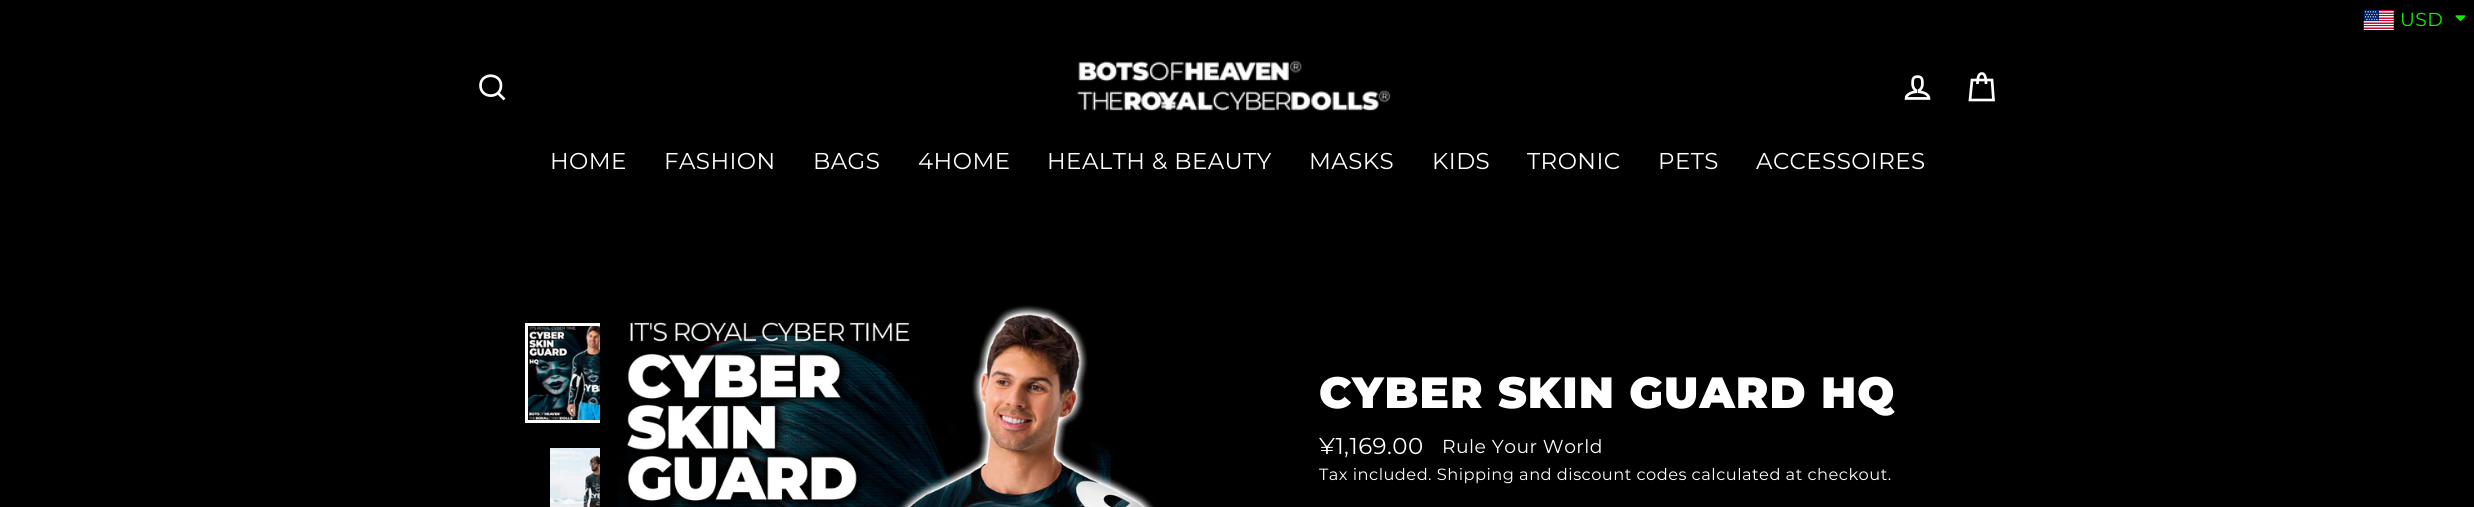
import math
import cairo

surface = cairo.ImageSurface(cairo.FORMAT_RGB24, 2474, 507)
cr = cairo.Context(surface)
options = cairo.FontOptions()
options.set_hint_metrics(cairo.HINT_METRICS_OFF)
options.set_hint_style(cairo.HINT_STYLE_NONE)
cr.set_font_options(options)
cr.set_miter_limit(4)


def rgb(code):
    cr.set_source_rgb(*(v / 255 for v in bytes.fromhex(code[-6:])))


def tracked(x, y, s, letter, word):
    cr.move_to(x, y)
    for ch in s:
        cr.show_text(ch)
        cr.rel_move_to(letter + word * (ch == ' '), 0)


def image(path, x, y, w, h):
    cr.save()
    cr.set_source_surface(cairo.ImageSurface.create_from_png(path), x, y)
    cr.rectangle(x, y, w, h)
    cr.fill()
    cr.restore()


rgb("#000000")
cr.paint()
image("img/1.png", 2363, 10, 31, 20)
image("img/2.png", 2455, 15, 11, 6)
cr.new_path()
cr.move_to(501, 85.5)
cr.curve_to(501, 99, 480.5, 99, 480.5, 85.5)
cr.curve_to(480.5, 72.5, 501, 72.5, 501, 85.5)
cr.close_path()
cr.move_to(504.5, 99.5)
cr.line_to(498, 93)
rgb("#ffffff")
cr.set_line_width(2.7)
cr.stroke()
image("img/3.png", 1077, 61, 314, 50)
image("img/4.png", 1904, 75, 27, 25)
cr.new_path()
cr.move_to(1977.5, 84)
cr.curve_to(1977.5, 75.5, 1979.5, 73.5, 1982, 73.5)
cr.curve_to(1984, 73.5, 1986, 75.5, 1986, 84)
cr.move_to(1972, 80)
cr.line_to(1992, 80)
cr.line_to(1993.5, 100)
cr.line_to(1970, 100)
cr.close_path()
cr.stroke()
image("img/5.png", 528, 326, 72, 94)
cr.rectangle(526.5, 324.5, 97, 97)
cr.set_line_width(3)
cr.stroke()
image("img/6.png", 550, 448, 50, 59)
rgb("#000000")
cr.rectangle(600, 323, 25, 100)
cr.fill()
image("img/7.png", 618, 305, 537, 202)
cr.select_font_face("Montserrat")
cr.set_font_size(18.75)
rgb("#0ff000")
tracked(2400, 26, "USD", 0.47, 0)
cr.set_font_size(22.9)
rgb("#ffffff")
for x, y, s in [
    (550, 169, "HOME"),
    (664, 169, "FASHION"),
    (813, 169, "BAGS"),
    (918, 169, "4HOME"),
    (1047, 169, "HEALTH & BEAUTY"),
    (1309, 169, "MASKS"),
    (1432, 169, "KIDS"),
    (1527, 169, "TRONIC"),
    (1658, 169, "PETS"),
    (1756, 169, "ACCESSOIRES"),
]:
    tracked(x, y, s, 0.47, 0)
cr.select_font_face("Montserrat Black")
cr.set_font_size(43.75)
tracked(1319, 408, "CYBER SKIN GUARD HQ", 1.1, 0)
cr.select_font_face("Montserrat")
cr.set_font_size(22.9)
tracked(1319, 454, "¥1,169.00", 0.47, 0)
cr.set_font_size(18.75)
tracked(1442, 453, "Rule Your World", 0.47, 0)
cr.set_font_size(16.25)
tracked(1319, 480, "Tax included. Shipping and discount codes calculated at checkout.", 0.47, 0)
surface.write_to_png("page.png")
